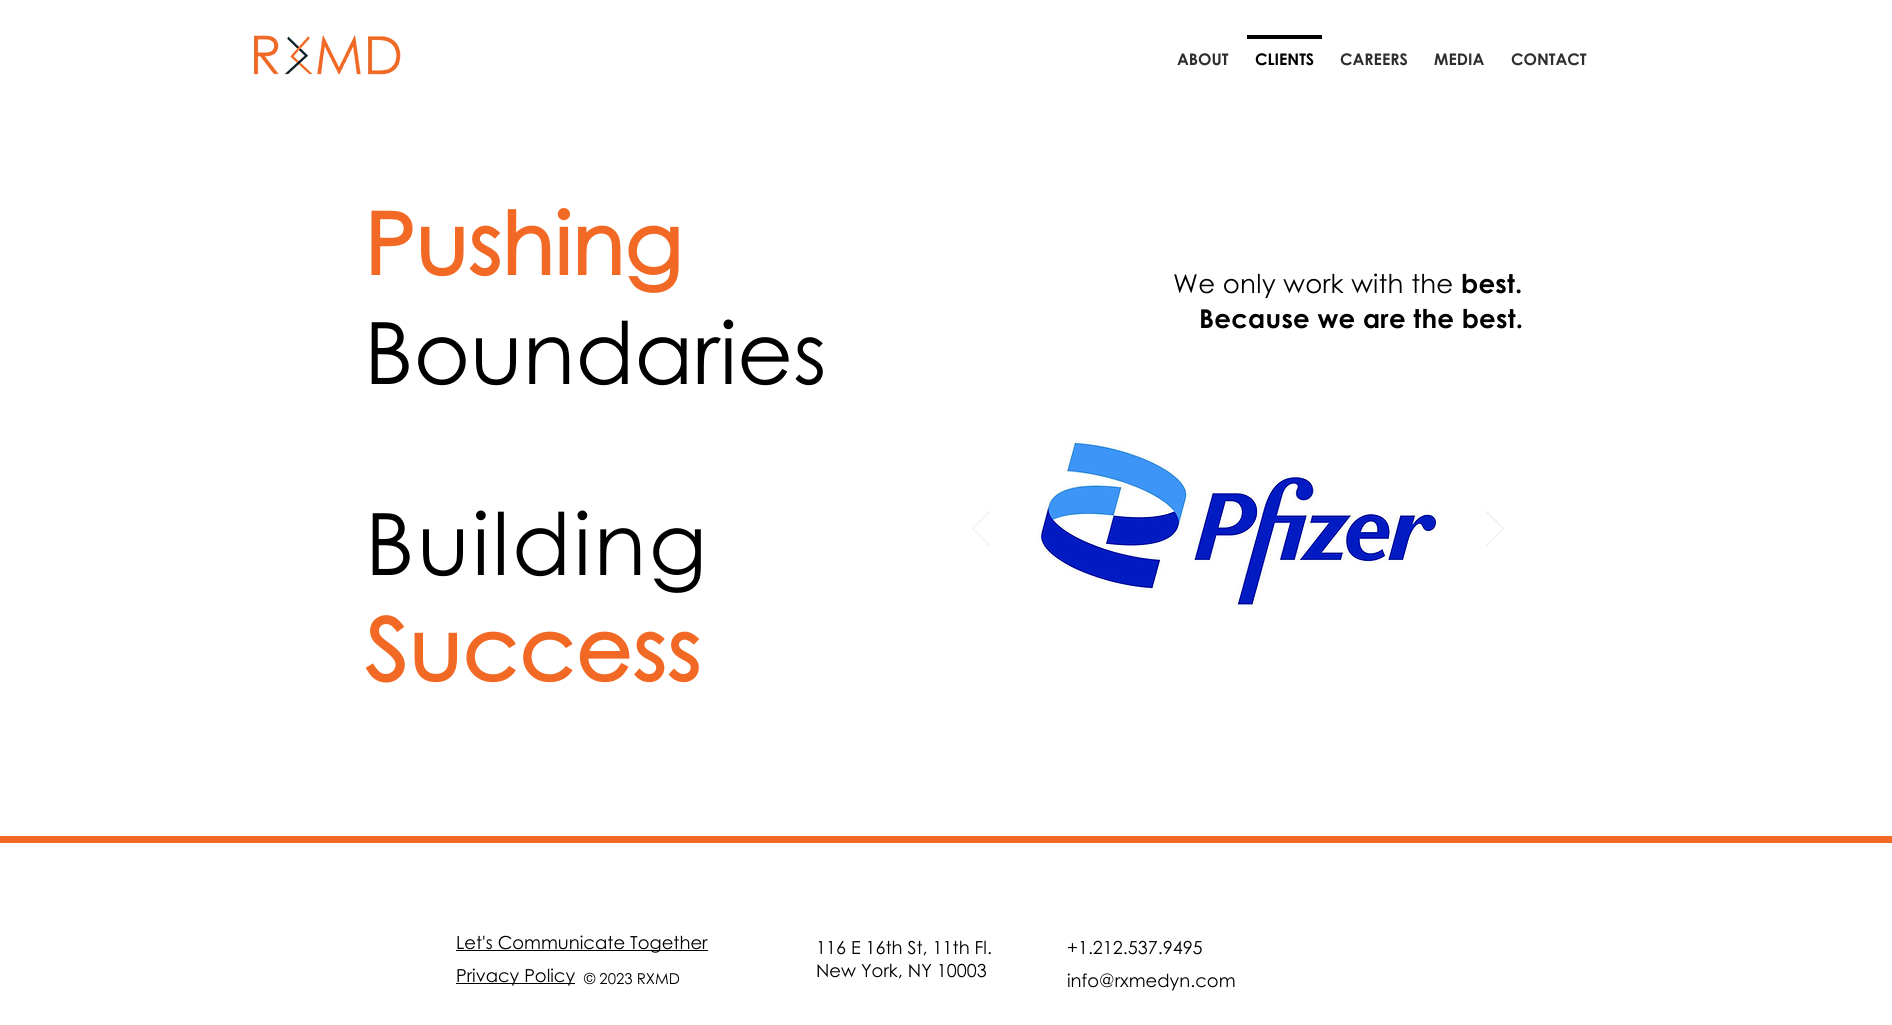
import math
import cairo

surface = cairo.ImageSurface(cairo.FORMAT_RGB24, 1892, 1025)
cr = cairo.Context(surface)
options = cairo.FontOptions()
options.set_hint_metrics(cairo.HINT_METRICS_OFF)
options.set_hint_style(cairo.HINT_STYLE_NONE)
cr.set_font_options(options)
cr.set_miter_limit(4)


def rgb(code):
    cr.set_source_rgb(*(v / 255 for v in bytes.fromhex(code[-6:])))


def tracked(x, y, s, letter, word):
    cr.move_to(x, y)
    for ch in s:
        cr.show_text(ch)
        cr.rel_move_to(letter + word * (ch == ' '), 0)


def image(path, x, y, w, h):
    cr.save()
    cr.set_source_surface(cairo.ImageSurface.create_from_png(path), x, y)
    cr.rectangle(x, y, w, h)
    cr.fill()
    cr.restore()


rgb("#ffffff")
cr.paint()
image("img/1.png", 253, 35, 148, 40)
rgb("#000000")
cr.rectangle(1247, 35, 75, 4)
cr.fill()
cr.save()
cr.rectangle(972, 511, 18, 35)
cr.clip()
cr.new_path()
cr.move_to(989.5, 546)
cr.line_to(972, 528.5)
cr.line_to(989.5, 511)
cr.line_to(990, 512)
cr.line_to(973, 528.5)
cr.line_to(990, 545.5)
cr.close_path()
rgb("#f2f2f2")
cr.set_line_width(0.9)
cr.stroke()
cr.restore()
image("img/2.png", 1038, 440, 400, 169)
cr.save()
cr.rectangle(1486, 511, 18, 35)
cr.clip()
cr.new_path()
cr.move_to(1486.5, 546)
cr.line_to(1504, 528.5)
cr.line_to(1486.5, 511)
cr.line_to(1486, 512)
cr.line_to(1503, 528.5)
cr.line_to(1486, 545.5)
cr.close_path()
rgb("#f2f2f2")
cr.set_line_width(0.9)
cr.stroke()
cr.restore()
for x, y, w, h, color in [
    (0, 836, 1892, 7, "#f16924"),
    (456, 950, 252, 1, "#000000"),
    (456, 983, 119, 1, "#000000"),
]:
    rgb(color)
    cr.rectangle(x, y, w, h)
    cr.fill()
cr.select_font_face("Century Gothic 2", cairo.FONT_SLANT_NORMAL, cairo.FONT_WEIGHT_BOLD)
cr.set_font_size(16)
rgb("#2f2e2e")
cr.move_to(1177, 65)
cr.show_text("ABOUT")
rgb("#000000")
cr.move_to(1255, 65)
cr.show_text("CLIENTS")
rgb("#2f2e2e")
for x, y, s in [
    (1340, 65, "CAREERS"),
    (1434, 65, "MEDIA"),
    (1511, 65, "CONTACT"),
]:
    cr.move_to(x, y)
    cr.show_text(s)
cr.select_font_face("Century Gothic", cairo.FONT_SLANT_NORMAL, cairo.FONT_WEIGHT_BOLD)
cr.set_font_size(86)
rgb("#f16924")
tracked(364, 275, "Pushing", 0.25, 0)
cr.select_font_face("Century Gothic")
rgb("#000000")
tracked(364, 384, "Boundaries", 0.25, 0)
cr.set_font_size(26)
tracked(1173, 293, "We only work with the", 0.25, 0)
cr.select_font_face("Century Gothic 2", cairo.FONT_SLANT_NORMAL, cairo.FONT_WEIGHT_BOLD)
tracked(1461, 293, "best.", 0.25, 0)
tracked(1199, 328, "Because we are the best.", 0.25, 0)
cr.select_font_face("Century Gothic")
cr.set_font_size(86)
tracked(365, 575, "Building", 2.75, 0)
cr.select_font_face("Century Gothic", cairo.FONT_SLANT_NORMAL, cairo.FONT_WEIGHT_BOLD)
rgb("#f16924")
tracked(365, 681, "Success", 1, 0)
cr.select_font_face("Century Gothic")
cr.set_font_size(18)
rgb("#000000")
for x, y, s in [
    (456, 949, "Let's Communicate Together"),
    (816, 954, "116 E 16th St, 11th Fl."),
    (816, 977, "New York, NY 10003"),
    (1067, 954, "+1.212.537.9495"),
    (1067, 987, "info@rxmedyn.com"),
    (456, 982, "Privacy Policy"),
]:
    cr.move_to(x, y)
    cr.show_text(s)
cr.set_font_size(15)
cr.move_to(584, 984)
cr.show_text("© 2023 RXMD")
surface.write_to_png("page.png")
